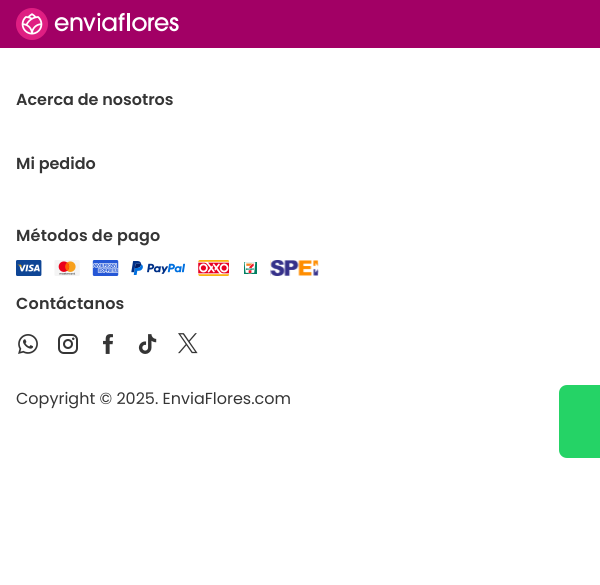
import math
import cairo

surface = cairo.ImageSurface(cairo.FORMAT_RGB24, 600, 585)
cr = cairo.Context(surface)
options = cairo.FontOptions()
options.set_hint_metrics(cairo.HINT_METRICS_OFF)
options.set_hint_style(cairo.HINT_STYLE_NONE)
cr.set_font_options(options)
cr.set_miter_limit(4)


def rgb(code):
    cr.set_source_rgb(*(v / 255 for v in bytes.fromhex(code[-6:])))


def tracked(x, y, s, letter, word):
    cr.move_to(x, y)
    for ch in s:
        cr.show_text(ch)
        cr.rel_move_to(letter + word * (ch == ' '), 0)


def image(path, x, y, w, h):
    cr.save()
    cr.set_source_surface(cairo.ImageSurface.create_from_png(path), x, y)
    cr.rectangle(x, y, w, h)
    cr.fill()
    cr.restore()


rgb("#ffffff")
cr.paint()
rgb("#a20065")
cr.rectangle(0, 0, 600, 48)
cr.fill()
image("img/1.png", 16, 8, 163, 32)
image("img/2.png", 16, 260, 26, 16)
image("img/3.png", 54, 260, 26, 16)
image("img/4.png", 92, 260, 27, 16)
image("img/5.png", 131, 261, 54, 14)
image("img/6.png", 198, 260, 31, 16)
image("img/7.png", 244, 262, 13, 12)
image("img/8.png", 270, 260, 49, 16)
image("img/9.png", 18, 334, 20, 20)
image("img/10.png", 58, 334, 20, 20)
image("img/11.png", 103, 334, 10, 20)
image("img/12.png", 138, 334, 19, 20)
image("img/13.png", 178, 333, 20, 21)
rgb("#25d366")
cr.new_path()
cr.move_to(567, 385)
cr.line_to(600, 385)
cr.line_to(600, 458)
cr.line_to(567, 458)
cr.curve_to(562.5, 458, 559, 454.5, 559, 450)
cr.line_to(559, 393)
cr.curve_to(559, 388.5, 562.5, 385, 567, 385)
cr.close_path()
cr.fill()
cr.select_font_face("Poppins SemiBold")
cr.set_font_size(16)
rgb("#353535")
cr.move_to(16, 105)
cr.show_text("Acerca de nosotros")
cr.move_to(16, 169)
cr.show_text("Mi pedido")
tracked(16, 241, "Métodos de pago", 0.2, 0)
tracked(16, 309, "Contáctanos", 0.2, 0)
cr.select_font_face("Poppins")
cr.move_to(16, 404)
cr.show_text("Copyright © 2025. EnviaFlores.com")
surface.write_to_png("page.png")
